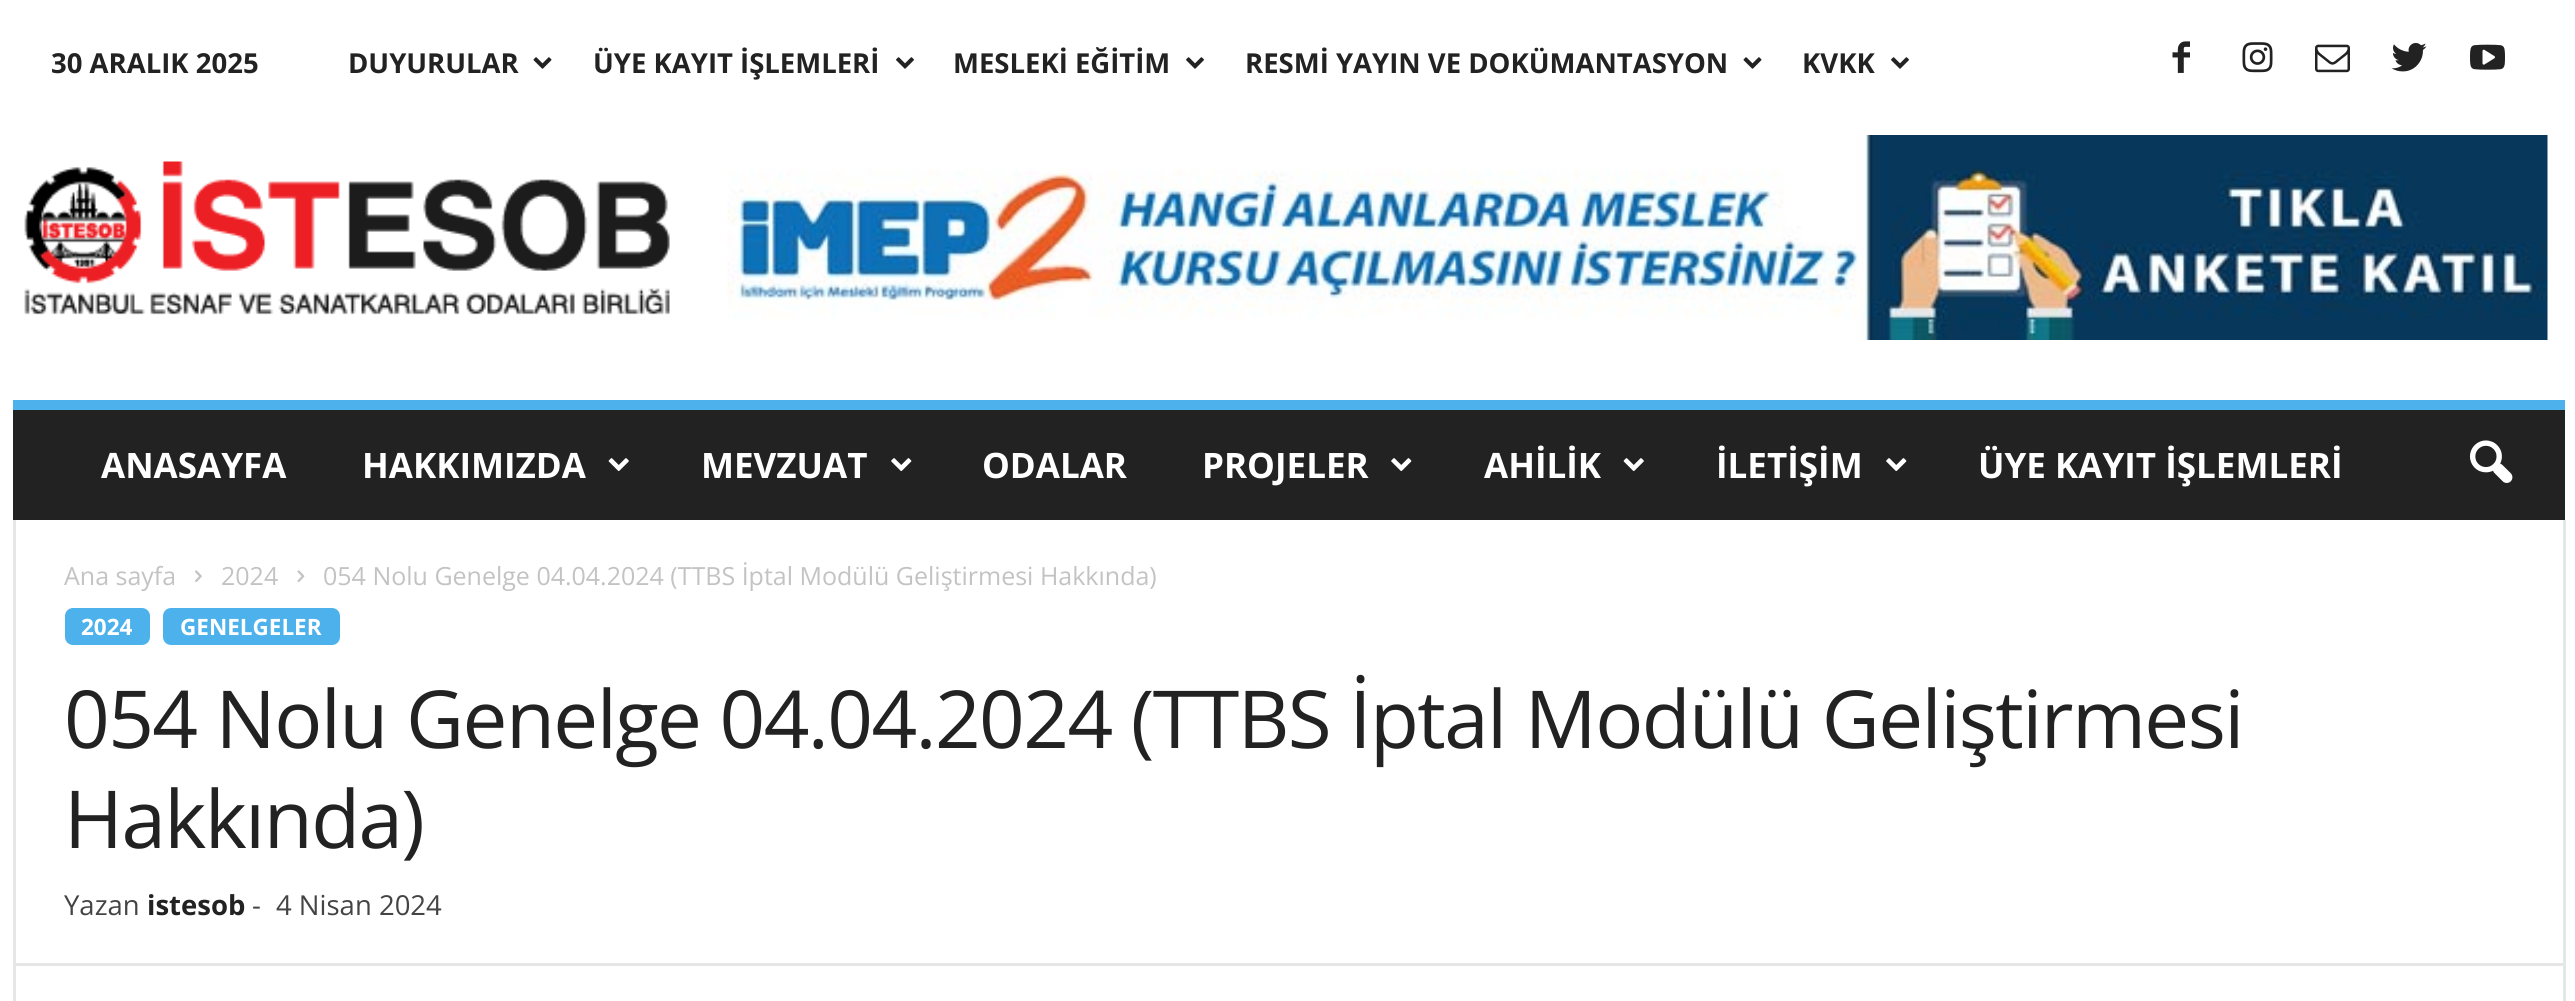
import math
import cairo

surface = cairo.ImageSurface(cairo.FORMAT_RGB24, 2575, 1001)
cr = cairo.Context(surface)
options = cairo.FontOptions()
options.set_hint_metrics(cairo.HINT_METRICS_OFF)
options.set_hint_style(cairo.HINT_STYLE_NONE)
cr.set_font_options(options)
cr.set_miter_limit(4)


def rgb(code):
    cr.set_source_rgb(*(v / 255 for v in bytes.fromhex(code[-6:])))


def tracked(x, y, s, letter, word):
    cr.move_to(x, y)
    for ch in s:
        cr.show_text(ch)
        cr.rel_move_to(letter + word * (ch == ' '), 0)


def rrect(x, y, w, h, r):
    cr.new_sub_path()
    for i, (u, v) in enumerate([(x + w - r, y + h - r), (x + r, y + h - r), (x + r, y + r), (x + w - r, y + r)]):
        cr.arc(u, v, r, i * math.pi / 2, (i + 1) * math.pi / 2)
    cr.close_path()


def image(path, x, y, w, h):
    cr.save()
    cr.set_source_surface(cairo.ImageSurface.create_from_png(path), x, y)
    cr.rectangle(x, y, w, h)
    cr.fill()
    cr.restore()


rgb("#ffffff")
cr.paint()
image("img/1.png", 533, 57, 19, 12)
image("img/2.png", 896, 57, 18, 12)
image("img/2.png", 1186, 57, 18, 12)
image("img/1.png", 1743, 57, 19, 12)
image("img/2.png", 1891, 57, 18, 12)
image("img/3.png", 2172, 41, 18, 32)
image("img/4.png", 2242, 42, 31, 31)
image("img/5.png", 2315, 44, 35, 29)
image("img/6.png", 2391, 43, 36, 29)
image("img/7.png", 2470, 44, 35, 26)
image("img/8.png", 24, 161, 646, 154)
image("img/9.png", 727, 135, 1821, 205)
rgb("#222222")
cr.rectangle(13, 410, 2552, 110)
cr.fill()
rgb("#4db2ec")
cr.rectangle(13, 400, 2552, 10)
cr.fill()
image("img/10.png", 608, 458, 21, 13)
image("img/11.png", 891, 458, 21, 13)
image("img/11.png", 1391, 458, 21, 13)
image("img/10.png", 1623, 458, 21, 13)
image("img/11.png", 1886, 458, 21, 13)
image("img/12.png", 2470, 440, 43, 43)
rgb("#e6e6e6")
cr.rectangle(13, 520, 3, 481)
cr.fill()
image("img/13.png", 195, 570, 7, 12)
image("img/14.png", 297, 570, 8, 12)
rgb("#4db2ec")
rrect(65, 608, 85, 37, 8)
cr.fill()
rrect(163, 608, 177, 37, 8)
cr.fill()
rgb("#e6e6e6")
cr.rectangle(15, 963, 2548, 3)
cr.fill()
cr.rectangle(2563, 520, 3, 481)
cr.fill()
cr.select_font_face("Open Sans", cairo.FONT_SLANT_NORMAL, cairo.FONT_WEIGHT_BOLD)
cr.set_font_size(27.5)
rgb("#222222")
for x, y, s in [
    (51, 73, "30 ARALIK 2025"),
    (348, 73, "DUYURULAR"),
    (593, 73, "ÜYE KAYIT İŞLEMLERİ"),
    (953, 73, "MESLEKİ EĞİTİM"),
    (1245, 73, "RESMİ YAYIN VE DOKÜMANTASYON"),
    (1802, 73, "KVKK"),
]:
    cr.move_to(x, y)
    cr.show_text(s)
cr.set_font_size(35)
rgb("#ffffff")
for x, y, s in [
    (101, 478, "ANASAYFA"),
    (362, 478, "HAKKIMIZDA"),
    (701, 478, "MEVZUAT"),
    (982, 478, "ODALAR"),
    (1202, 478, "PROJELER"),
    (1484, 478, "AHİLİK"),
    (1716, 478, "İLETİŞİM"),
    (1978, 478, "ÜYE KAYIT İŞLEMLERİ"),
]:
    cr.move_to(x, y)
    cr.show_text(s)
cr.select_font_face("Open Sans")
cr.set_font_size(25)
rgb("#c3c3c3")
for x, y, s in [
    (64, 585, "Ana sayfa"),
    (221, 585, "2024"),
    (323, 585, "054 Nolu Genelge 04.04.2024 (TTBS İptal Modülü Geliştirmesi Hakkında)"),
]:
    cr.move_to(x, y)
    cr.show_text(s)
cr.select_font_face("Open Sans", cairo.FONT_SLANT_NORMAL, cairo.FONT_WEIGHT_BOLD)
cr.set_font_size(22.5)
rgb("#ffffff")
cr.move_to(81, 635)
cr.show_text("2024")
cr.move_to(180, 635)
cr.show_text("GENELGELER")
cr.select_font_face("Open Sans")
cr.set_font_size(80)
rgb("#222222")
tracked(64, 748, "054 Nolu Genelge 04.04.2024 (TTBS İptal Modülü Geliştirmesi", -1.6, 0)
tracked(64, 848, "Hakkında)", -1.6, 0)
cr.set_font_size(27.5)
rgb("#444444")
cr.move_to(64, 915)
cr.show_text("Yazan")
cr.select_font_face("Open Sans", cairo.FONT_SLANT_NORMAL, cairo.FONT_WEIGHT_BOLD)
rgb("#222222")
cr.move_to(147, 915)
cr.show_text("istesob")
cr.select_font_face("Open Sans")
rgb("#444444")
cr.move_to(252, 915)
cr.show_text("-")
cr.move_to(276, 915)
cr.show_text("4 Nisan 2024")
surface.write_to_png("page.png")
